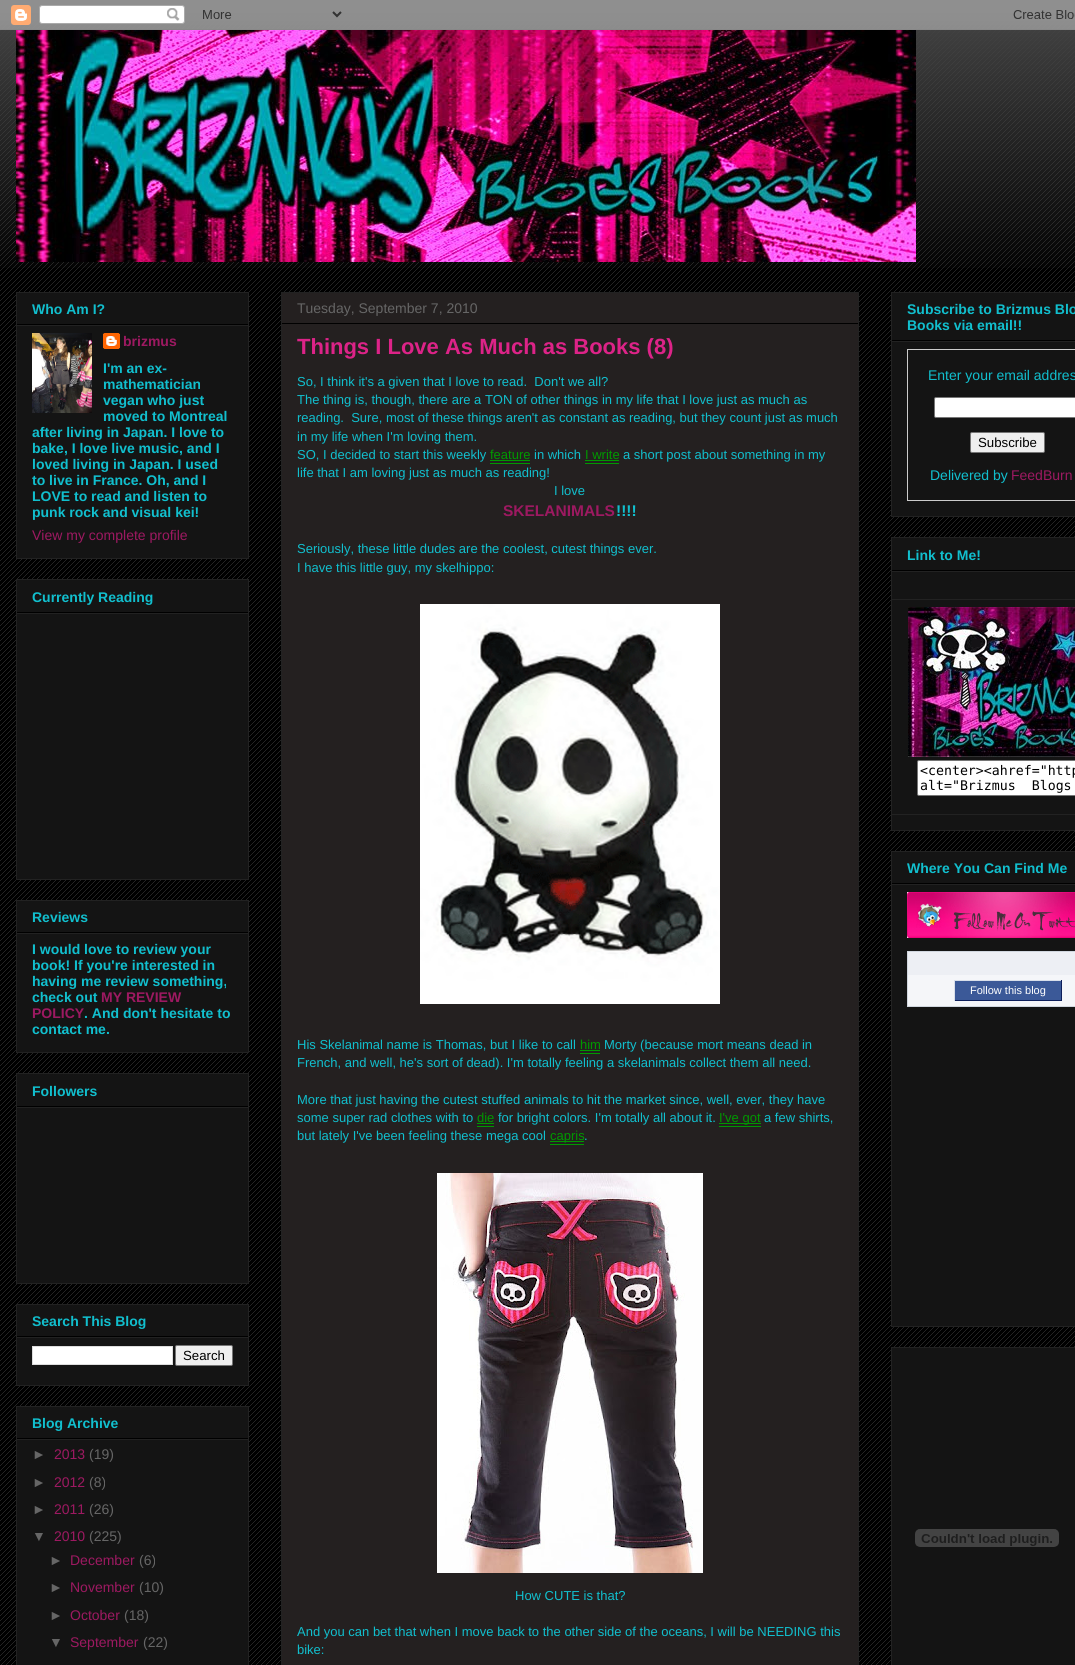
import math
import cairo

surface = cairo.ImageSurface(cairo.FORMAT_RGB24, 1075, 1665)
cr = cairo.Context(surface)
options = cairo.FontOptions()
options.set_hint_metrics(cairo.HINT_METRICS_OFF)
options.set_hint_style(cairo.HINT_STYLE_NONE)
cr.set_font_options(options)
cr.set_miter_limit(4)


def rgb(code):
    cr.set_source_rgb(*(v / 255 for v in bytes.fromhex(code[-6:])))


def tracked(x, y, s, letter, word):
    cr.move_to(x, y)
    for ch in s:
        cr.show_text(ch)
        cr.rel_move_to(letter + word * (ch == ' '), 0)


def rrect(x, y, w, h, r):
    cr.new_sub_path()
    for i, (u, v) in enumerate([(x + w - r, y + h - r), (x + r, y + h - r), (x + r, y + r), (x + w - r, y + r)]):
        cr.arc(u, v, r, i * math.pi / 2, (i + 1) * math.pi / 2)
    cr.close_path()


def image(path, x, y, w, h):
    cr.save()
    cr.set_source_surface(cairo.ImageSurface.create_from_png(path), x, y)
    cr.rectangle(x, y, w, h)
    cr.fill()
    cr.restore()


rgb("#000000")
cr.paint()
image("img/1.png", 0, 13, 1075, 1652)
image("img/2.png", 0, 0, 1075, 268)
image("img/3.png", 0, 0, 1075, 30)
image("img/4.png", 16, 30, 900, 232)
rgb("#141414")
cr.rectangle(16.5, 292.5, 232, 266)
cr.fill_preserve()
rgb("#222222")
cr.set_line_width(1)
cr.stroke()
rgb("#000000")
cr.rectangle(17, 324, 231, 1)
cr.fill()
rgb("#222222")
cr.rectangle(17, 325, 231, 1)
cr.fill()
image("img/5.png", 32, 333, 60, 80)
image("img/6.png", 103, 333, 17, 16)
rgb("#141414")
cr.rectangle(16.5, 579.5, 232, 300)
cr.fill_preserve()
rgb("#222222")
cr.stroke()
rgb("#000000")
cr.rectangle(17, 612, 231, 1)
cr.fill()
rgb("#222222")
cr.rectangle(17, 613, 231, 1)
cr.fill()
rgb("#141414")
cr.rectangle(16.5, 900.5, 232, 152)
cr.fill_preserve()
rgb("#222222")
cr.stroke()
rgb("#000000")
cr.rectangle(17, 932, 231, 1)
cr.fill()
rgb("#222222")
cr.rectangle(17, 933, 231, 1)
cr.fill()
rgb("#141414")
cr.rectangle(16.5, 1073.5, 232, 210)
cr.fill_preserve()
rgb("#222222")
cr.stroke()
rgb("#000000")
cr.rectangle(17, 1106, 231, 1)
cr.fill()
rgb("#222222")
cr.rectangle(17, 1107, 231, 1)
cr.fill()
rgb("#141414")
cr.rectangle(16.5, 1304.5, 232, 81)
cr.fill_preserve()
rgb("#222222")
cr.stroke()
rgb("#000000")
cr.rectangle(17, 1336, 231, 1)
cr.fill()
rgb("#222222")
cr.rectangle(17, 1337, 231, 1)
cr.fill()
rgb("#ffffff")
cr.rectangle(32.5, 1346.5, 140, 18)
cr.fill_preserve()
rgb("#dddddd")
cr.stroke()
rgb("#efefef")
rrect(175.5, 1345.5, 57, 20, 1.5)
cr.fill_preserve()
rgb("#767676")
cr.stroke()
rgb("#141414")
cr.rectangle(16.5, 1406.5, 232, 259)
cr.fill_preserve()
rgb("#222222")
cr.stroke()
rgb("#000000")
cr.rectangle(17, 1438, 231, 1)
cr.fill()
rgb("#222222")
cr.rectangle(17, 1439, 231, 1)
cr.fill()
rgb("#242020")
cr.rectangle(281.5, 292.5, 577, 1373)
cr.fill_preserve()
rgb("#222222")
cr.stroke()
for x, y, w, h, color in [
    (282, 323, 576, 1, "#000000"),
    (490, 463, 40, 1, "#009900"),
    (490, 460, 40, 1, "#009900"),
    (585, 463, 34, 1, "#009900"),
    (585, 460, 34, 1, "#009900"),
]:
    rgb(color)
    cr.rectangle(x, y, w, h)
    cr.fill()
image("img/7.png", 420, 604, 300, 400)
for x, y, w, h, color in [
    (580, 1053, 20, 1, "#009900"),
    (580, 1050, 20, 1, "#009900"),
    (477, 1126, 17, 1, "#009900"),
    (477, 1123, 17, 1, "#009900"),
    (719, 1126, 42, 1, "#009900"),
    (719, 1123, 42, 1, "#009900"),
    (550, 1144, 34, 1, "#009900"),
    (550, 1141, 34, 1, "#009900"),
]:
    rgb(color)
    cr.rectangle(x, y, w, h)
    cr.fill()
image("img/8.png", 437, 1173, 266, 400)
rgb("#141414")
cr.rectangle(891.5, 292.5, 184, 224)
cr.fill_preserve()
rgb("#222222")
cr.stroke()
rgb("#000000")
cr.rectangle(892, 340, 183, 1)
cr.fill()
rgb("#222222")
cr.rectangle(892, 341, 183, 1)
cr.fill()
cr.rectangle(907.5, 349.5, 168, 151)
rgb("#cccccc")
cr.stroke()
rgb("#ffffff")
rrect(934.5, 397.5, 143, 20, 1.5)
cr.fill_preserve()
rgb("#767676")
cr.stroke()
rgb("#efefef")
rrect(970.5, 432.5, 74, 20, 1.5)
cr.fill_preserve()
rgb("#767676")
cr.stroke()
rgb("#141414")
cr.rectangle(891.5, 537.5, 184, 293)
cr.fill_preserve()
rgb("#222222")
cr.stroke()
rgb("#000000")
cr.rectangle(892, 570, 183, 1)
cr.fill()
rgb("#222222")
cr.rectangle(892, 571, 183, 1)
cr.fill()
cr.rectangle(891.5, 599.5, 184, 215)
cr.stroke()
image("img/9.png", 908, 607, 167, 150)
rgb("#ffffff")
rrect(917.5, 760.5, 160, 35, 1.5)
cr.fill_preserve()
rgb("#767676")
cr.stroke()
rgb("#141414")
cr.rectangle(891.5, 851.5, 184, 475)
cr.fill_preserve()
rgb("#222222")
cr.stroke()
rgb("#000000")
cr.rectangle(892, 883, 183, 1)
cr.fill()
rgb("#222222")
cr.rectangle(892, 884, 183, 1)
cr.fill()
image("img/10.png", 907, 892, 168, 46)
rgb("#f5f6f9")
cr.rectangle(908, 975, 167, 31)
cr.fill()
cr.rectangle(907.5, 951.5, 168, 55)
rgb("#d1d7df")
cr.stroke()
for x, y, w, h, color in [
    (908, 952, 167, 23, "#edeff4"),
    (955, 981, 106, 19, "#3b5998"),
    (954, 980, 108, 1, "#d9dfea"),
    (1061, 980, 1, 21, "#0e1f5b"),
    (954, 1000, 108, 1, "#0e1f5b"),
    (954, 980, 1, 21, "#d9dfea"),
]:
    rgb(color)
    cr.rectangle(x, y, w, h)
    cr.fill()
rgb("#141414")
cr.rectangle(891.5, 1347.5, 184, 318)
cr.fill_preserve()
rgb("#222222")
cr.stroke()
image("img/11.png", 915, 1529, 144, 18)
cr.select_font_face("Liberation Sans", cairo.FONT_SLANT_NORMAL, cairo.FONT_WEIGHT_BOLD)
cr.set_font_size(14)
rgb("#11bfce")
cr.move_to(32, 314)
cr.show_text("Who Am I?")
rgb("#9d1961")
cr.move_to(123, 346)
cr.show_text("brizmus")
rgb("#11bfce")
for x, y, s in [
    (103, 373, "I'm an ex-"),
    (103, 389, "mathematician"),
    (103, 405, "vegan who just"),
    (103, 421, "moved to Montreal"),
    (32, 437, "after living in Japan. I love to"),
    (32, 453, "bake, I love live music, and I"),
    (32, 469, "loved living in Japan. I used"),
    (32, 485, "to live in France. Oh, and I"),
    (32, 501, "LOVE to read and listen to"),
    (32, 517, "punk rock and visual kei!"),
]:
    cr.move_to(x, y)
    cr.show_text(s)
cr.select_font_face("Liberation Sans")
rgb("#9d1961")
cr.move_to(32, 540)
cr.show_text("View my complete profile")
cr.select_font_face("Liberation Sans", cairo.FONT_SLANT_NORMAL, cairo.FONT_WEIGHT_BOLD)
rgb("#11bfce")
for x, y, s in [
    (32, 602, "Currently Reading"),
    (32, 922, "Reviews"),
    (32, 954, "I would love to review your"),
    (32, 970, "book! If you're interested in"),
    (32, 986, "having me review something,"),
    (32, 1002, "check out"),
]:
    cr.move_to(x, y)
    cr.show_text(s)
rgb("#9d1961")
cr.move_to(101, 1002)
cr.show_text("MY REVIEW")
cr.move_to(32, 1018)
cr.show_text("POLICY")
rgb("#11bfce")
for x, y, s in [
    (84, 1018, ". And don't hesitate to"),
    (32, 1034, "contact me."),
    (32, 1096, "Followers"),
    (32, 1326, "Search This Blog"),
]:
    cr.move_to(x, y)
    cr.show_text(s)
cr.select_font_face("Liberation Sans")
cr.set_font_size(13.25)
rgb("#000000")
cr.move_to(183, 1360)
cr.show_text("Search")
cr.select_font_face("Liberation Sans", cairo.FONT_SLANT_NORMAL, cairo.FONT_WEIGHT_BOLD)
cr.set_font_size(14)
rgb("#11bfce")
cr.move_to(32, 1428)
cr.show_text("Blog Archive")
cr.select_font_face("Liberation Sans")
rgb("#666666")
cr.move_to(32, 1459)
cr.show_text("►")
rgb("#9d1961")
cr.move_to(54, 1459)
cr.show_text("2013")
rgb("#666666")
cr.move_to(89, 1459)
cr.show_text("(19)")
cr.move_to(32, 1487)
cr.show_text("►")
rgb("#9d1961")
cr.move_to(54, 1487)
cr.show_text("2012")
rgb("#666666")
cr.move_to(89, 1487)
cr.show_text("(8)")
cr.move_to(32, 1514)
cr.show_text("►")
rgb("#9d1961")
cr.move_to(54, 1514)
cr.show_text("2011")
rgb("#666666")
cr.move_to(89, 1514)
cr.show_text("(26)")
cr.move_to(32, 1541)
cr.show_text("▼")
rgb("#9d1961")
cr.move_to(54, 1541)
cr.show_text("2010")
rgb("#666666")
cr.move_to(89, 1541)
cr.show_text("(225)")
cr.move_to(49, 1565)
cr.show_text("►")
rgb("#9d1961")
cr.move_to(70, 1565)
cr.show_text("December")
rgb("#666666")
cr.move_to(139, 1565)
cr.show_text("(6)")
cr.move_to(49, 1592)
cr.show_text("►")
rgb("#9d1961")
cr.move_to(70, 1592)
cr.show_text("November")
rgb("#666666")
cr.move_to(139, 1592)
cr.show_text("(10)")
cr.move_to(49, 1620)
cr.show_text("►")
rgb("#9d1961")
cr.move_to(70, 1620)
cr.show_text("October")
rgb("#666666")
cr.move_to(124, 1620)
cr.show_text("(18)")
cr.move_to(49, 1647)
cr.show_text("▼")
rgb("#9d1961")
cr.move_to(70, 1647)
cr.show_text("September")
rgb("#666666")
cr.move_to(143, 1647)
cr.show_text("(22)")
cr.move_to(297, 313)
cr.show_text("Tuesday, September 7, 2010")
cr.select_font_face("Liberation Sans", cairo.FONT_SLANT_NORMAL, cairo.FONT_WEIGHT_BOLD)
cr.set_font_size(22)
rgb("#dd2388")
cr.move_to(297, 354)
cr.show_text("Things I Love As Much as Books (8)")
cr.select_font_face("Liberation Sans")
cr.set_font_size(13)
rgb("#11bfce")
for x, y, s in [
    (297, 386, "So, I think it's a given that I love to read.  Don't we all?"),
    (297, 404, "The thing is, though, there are a TON of other things in my life that I love just as much as"),
    (297, 422, "reading.  Sure, most of these things aren't as constant as reading, but they count just as much"),
    (297, 441, "in my life when I'm loving them."),
    (297, 459, "SO, I decided to start this weekly"),
]:
    cr.move_to(x, y)
    cr.show_text(s)
rgb("#009900")
cr.move_to(490, 459)
cr.show_text("feature")
rgb("#11bfce")
cr.move_to(534, 459)
cr.show_text("in which")
rgb("#009900")
cr.move_to(585, 459)
cr.show_text("I write")
rgb("#11bfce")
for x, y, s in [
    (623, 459, "a short post about something in my"),
    (297, 477, "life that I am loving just as much as reading!"),
    (554, 495, "I love"),
]:
    cr.move_to(x, y)
    cr.show_text(s)
cr.select_font_face("Liberation Sans", cairo.FONT_SLANT_NORMAL, cairo.FONT_WEIGHT_BOLD)
cr.set_font_size(15.5)
rgb("#9d1961")
cr.move_to(503, 516)
cr.show_text("SKELANIMALS")
rgb("#11bfce")
cr.move_to(616, 516)
cr.show_text("!!!!")
cr.select_font_face("Liberation Sans")
cr.set_font_size(13)
for x, y, s in [
    (297, 553, "Seriously, these little dudes are the coolest, cutest things ever."),
    (297, 572, "I have this little guy, my skelhippo:"),
    (297, 1049, "His Skelanimal name is Thomas, but I like to call"),
]:
    cr.move_to(x, y)
    cr.show_text(s)
rgb("#009900")
cr.move_to(580, 1049)
cr.show_text("him")
rgb("#11bfce")
for x, y, s in [
    (604, 1049, "Morty (because mort means dead in"),
    (297, 1067, "French, and well, he's sort of dead). I'm totally feeling a skelanimals collect them all need."),
    (297, 1104, "More that just having the cutest stuffed animals to hit the market since, well, ever, they have"),
    (297, 1122, "some super rad clothes with to"),
]:
    cr.move_to(x, y)
    cr.show_text(s)
rgb("#009900")
cr.move_to(477, 1122)
cr.show_text("die")
rgb("#11bfce")
cr.move_to(498, 1122)
cr.show_text("for bright colors. I'm totally all about it.")
rgb("#009900")
cr.move_to(719, 1122)
cr.show_text("I've got")
rgb("#11bfce")
cr.move_to(764, 1122)
cr.show_text("a few shirts,")
cr.move_to(297, 1140)
cr.show_text("but lately I've been feeling these mega cool")
rgb("#009900")
cr.move_to(550, 1140)
cr.show_text("capris")
rgb("#11bfce")
for x, y, s in [
    (584, 1140, "."),
    (515, 1600, "How CUTE is that?"),
    (297, 1636, "And you can bet that when I move back to the other side of the oceans, I will be NEEDING this"),
    (297, 1654, "bike:"),
]:
    cr.move_to(x, y)
    cr.show_text(s)
cr.select_font_face("Liberation Sans", cairo.FONT_SLANT_NORMAL, cairo.FONT_WEIGHT_BOLD)
cr.set_font_size(14)
cr.move_to(907, 314)
cr.show_text("Subscribe to Brizmus Blo")
cr.move_to(907, 330)
cr.show_text("Books via email!!")
cr.select_font_face("Liberation Sans")
cr.move_to(928, 380)
cr.show_text("Enter your email addres")
cr.set_font_size(13.25)
rgb("#000000")
cr.move_to(978, 447)
cr.show_text("Subscribe")
cr.set_font_size(14)
rgb("#11bfce")
cr.move_to(930, 480)
cr.show_text("Delivered by")
rgb("#9d1961")
cr.move_to(1011, 480)
cr.show_text("FeedBurn")
cr.select_font_face("Liberation Sans", cairo.FONT_SLANT_NORMAL, cairo.FONT_WEIGHT_BOLD)
rgb("#11bfce")
cr.move_to(907, 560)
cr.show_text("Link to Me!")
cr.select_font_face("DejaVu Sans Mono")
cr.set_font_size(13.25)
rgb("#000000")
cr.move_to(920, 775)
cr.show_text("<center><ahref=\"http")
tracked(920, 790, "alt=\"Brizmus Blogs", 0, 8)
cr.select_font_face("Liberation Sans", cairo.FONT_SLANT_NORMAL, cairo.FONT_WEIGHT_BOLD)
cr.set_font_size(14)
rgb("#11bfce")
cr.move_to(907, 873)
cr.show_text("Where You Can Find Me")
cr.select_font_face("Liberation Sans")
cr.set_font_size(11)
rgb("#ffffff")
cr.move_to(970, 994)
cr.show_text("Follow this blog")
surface.write_to_png("page.png")
